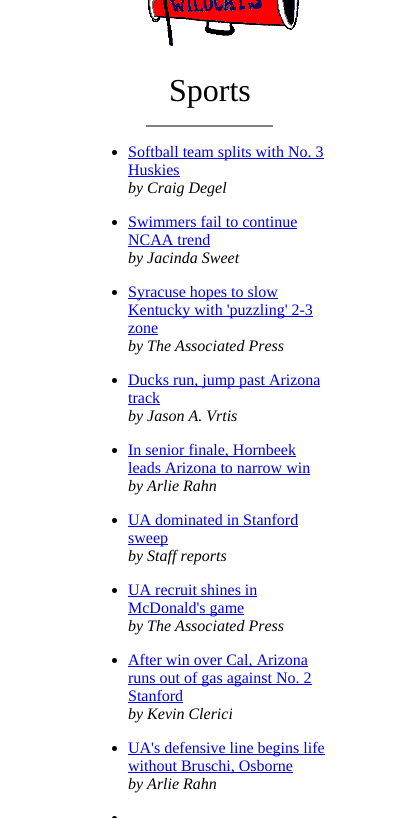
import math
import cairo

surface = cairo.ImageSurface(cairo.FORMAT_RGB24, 419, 818)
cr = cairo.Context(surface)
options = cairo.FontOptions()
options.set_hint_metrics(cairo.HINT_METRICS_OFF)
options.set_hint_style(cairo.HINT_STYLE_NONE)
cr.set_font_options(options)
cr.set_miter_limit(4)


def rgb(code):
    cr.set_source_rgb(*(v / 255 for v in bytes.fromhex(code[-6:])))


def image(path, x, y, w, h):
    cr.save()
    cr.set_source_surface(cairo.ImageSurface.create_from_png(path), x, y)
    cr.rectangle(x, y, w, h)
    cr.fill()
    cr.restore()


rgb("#ffffff")
cr.paint()
image("img/1.png", 148, 0, 151, 46)
rgb("#808080")
cr.rectangle(146, 125, 127, 2)
cr.fill()
rgb("#000000")
cr.arc(114.5, 152.5, 2.5, 0, 2 * math.pi)
cr.fill()
rgb("#0000ee")
cr.rectangle(128, 158, 196, 1)
cr.fill()
cr.rectangle(128, 176, 52, 1)
cr.fill()
rgb("#000000")
cr.arc(114.5, 222.5, 2.5, 0, 2 * math.pi)
cr.fill()
rgb("#0000ee")
cr.rectangle(128, 228, 169, 1)
cr.fill()
cr.rectangle(128, 246, 82, 1)
cr.fill()
rgb("#000000")
cr.arc(114.5, 292.5, 2.5, 0, 2 * math.pi)
cr.fill()
for x, y, w, h, color in [
    (128, 298, 150, 1, "#0000ee"),
    (128, 316, 185, 1, "#0000ee"),
    (128, 334, 30, 1, "#0000ee"),
]:
    rgb(color)
    cr.rectangle(x, y, w, h)
    cr.fill()
rgb("#000000")
cr.arc(114.5, 380.5, 2.5, 0, 2 * math.pi)
cr.fill()
rgb("#0000ee")
cr.rectangle(128, 386, 192, 1)
cr.fill()
cr.rectangle(128, 404, 32, 1)
cr.fill()
rgb("#000000")
cr.arc(114.5, 450.5, 2.5, 0, 2 * math.pi)
cr.fill()
rgb("#0000ee")
cr.rectangle(128, 456, 168, 1)
cr.fill()
cr.rectangle(128, 474, 182, 1)
cr.fill()
rgb("#000000")
cr.arc(114.5, 520.5, 2.5, 0, 2 * math.pi)
cr.fill()
rgb("#0000ee")
cr.rectangle(128, 526, 170, 1)
cr.fill()
cr.rectangle(128, 544, 40, 1)
cr.fill()
rgb("#000000")
cr.arc(114.5, 590.5, 2.5, 0, 2 * math.pi)
cr.fill()
rgb("#0000ee")
cr.rectangle(128, 596, 129, 1)
cr.fill()
cr.rectangle(128, 614, 116, 1)
cr.fill()
rgb("#000000")
cr.arc(114.5, 660.5, 2.5, 0, 2 * math.pi)
cr.fill()
for x, y, w, h, color in [
    (128, 666, 180, 1, "#0000ee"),
    (128, 684, 184, 1, "#0000ee"),
    (128, 702, 55, 1, "#0000ee"),
]:
    rgb(color)
    cr.rectangle(x, y, w, h)
    cr.fill()
rgb("#000000")
cr.arc(114.5, 748.5, 2.5, 0, 2 * math.pi)
cr.fill()
rgb("#0000ee")
cr.rectangle(128, 754, 197, 1)
cr.fill()
cr.rectangle(128, 772, 165, 1)
cr.fill()
rgb("#000000")
cr.arc(114.5, 818.5, 2.5, 0, 2 * math.pi)
cr.fill()
cr.select_font_face("Liberation Serif")
cr.set_font_size(32)
cr.move_to(169, 101)
cr.show_text("Sports")
cr.set_font_size(16)
rgb("#0000ee")
cr.move_to(128, 157)
cr.show_text("Softball team splits with No. 3")
cr.move_to(128, 175)
cr.show_text("Huskies")
cr.select_font_face("Liberation Serif", cairo.FONT_SLANT_ITALIC)
rgb("#000000")
cr.move_to(128, 193)
cr.show_text("by Craig Degel")
cr.select_font_face("Liberation Serif")
rgb("#0000ee")
cr.move_to(128, 227)
cr.show_text("Swimmers fail to continue")
cr.move_to(128, 245)
cr.show_text("NCAA trend")
cr.select_font_face("Liberation Serif", cairo.FONT_SLANT_ITALIC)
rgb("#000000")
cr.move_to(128, 263)
cr.show_text("by Jacinda Sweet")
cr.select_font_face("Liberation Serif")
rgb("#0000ee")
for x, y, s in [
    (128, 297, "Syracuse hopes to slow"),
    (128, 315, "Kentucky with 'puzzling' 2-3"),
    (128, 333, "zone"),
]:
    cr.move_to(x, y)
    cr.show_text(s)
cr.select_font_face("Liberation Serif", cairo.FONT_SLANT_ITALIC)
rgb("#000000")
cr.move_to(128, 351)
cr.show_text("by The Associated Press")
cr.select_font_face("Liberation Serif")
rgb("#0000ee")
cr.move_to(128, 385)
cr.show_text("Ducks run, jump past Arizona")
cr.move_to(128, 403)
cr.show_text("track")
cr.select_font_face("Liberation Serif", cairo.FONT_SLANT_ITALIC)
rgb("#000000")
cr.move_to(128, 421)
cr.show_text("by Jason A. Vrtis")
cr.select_font_face("Liberation Serif")
rgb("#0000ee")
cr.move_to(128, 455)
cr.show_text("In senior finale, Hornbeek")
cr.move_to(128, 473)
cr.show_text("leads Arizona to narrow win")
cr.select_font_face("Liberation Serif", cairo.FONT_SLANT_ITALIC)
rgb("#000000")
cr.move_to(128, 491)
cr.show_text("by Arlie Rahn")
cr.select_font_face("Liberation Serif")
rgb("#0000ee")
cr.move_to(128, 525)
cr.show_text("UA dominated in Stanford")
cr.move_to(128, 543)
cr.show_text("sweep")
cr.select_font_face("Liberation Serif", cairo.FONT_SLANT_ITALIC)
rgb("#000000")
cr.move_to(128, 561)
cr.show_text("by Staff reports")
cr.select_font_face("Liberation Serif")
rgb("#0000ee")
cr.move_to(128, 595)
cr.show_text("UA recruit shines in")
cr.move_to(128, 613)
cr.show_text("McDonald's game")
cr.select_font_face("Liberation Serif", cairo.FONT_SLANT_ITALIC)
rgb("#000000")
cr.move_to(128, 631)
cr.show_text("by The Associated Press")
cr.select_font_face("Liberation Serif")
rgb("#0000ee")
for x, y, s in [
    (128, 665, "After win over Cal, Arizona"),
    (128, 683, "runs out of gas against No. 2"),
    (128, 701, "Stanford"),
]:
    cr.move_to(x, y)
    cr.show_text(s)
cr.select_font_face("Liberation Serif", cairo.FONT_SLANT_ITALIC)
rgb("#000000")
cr.move_to(128, 719)
cr.show_text("by Kevin Clerici")
cr.select_font_face("Liberation Serif")
rgb("#0000ee")
cr.move_to(128, 753)
cr.show_text("UA's defensive line begins life")
cr.move_to(128, 771)
cr.show_text("without Bruschi, Osborne")
cr.select_font_face("Liberation Serif", cairo.FONT_SLANT_ITALIC)
rgb("#000000")
cr.move_to(128, 789)
cr.show_text("by Arlie Rahn")
surface.write_to_png("page.png")
